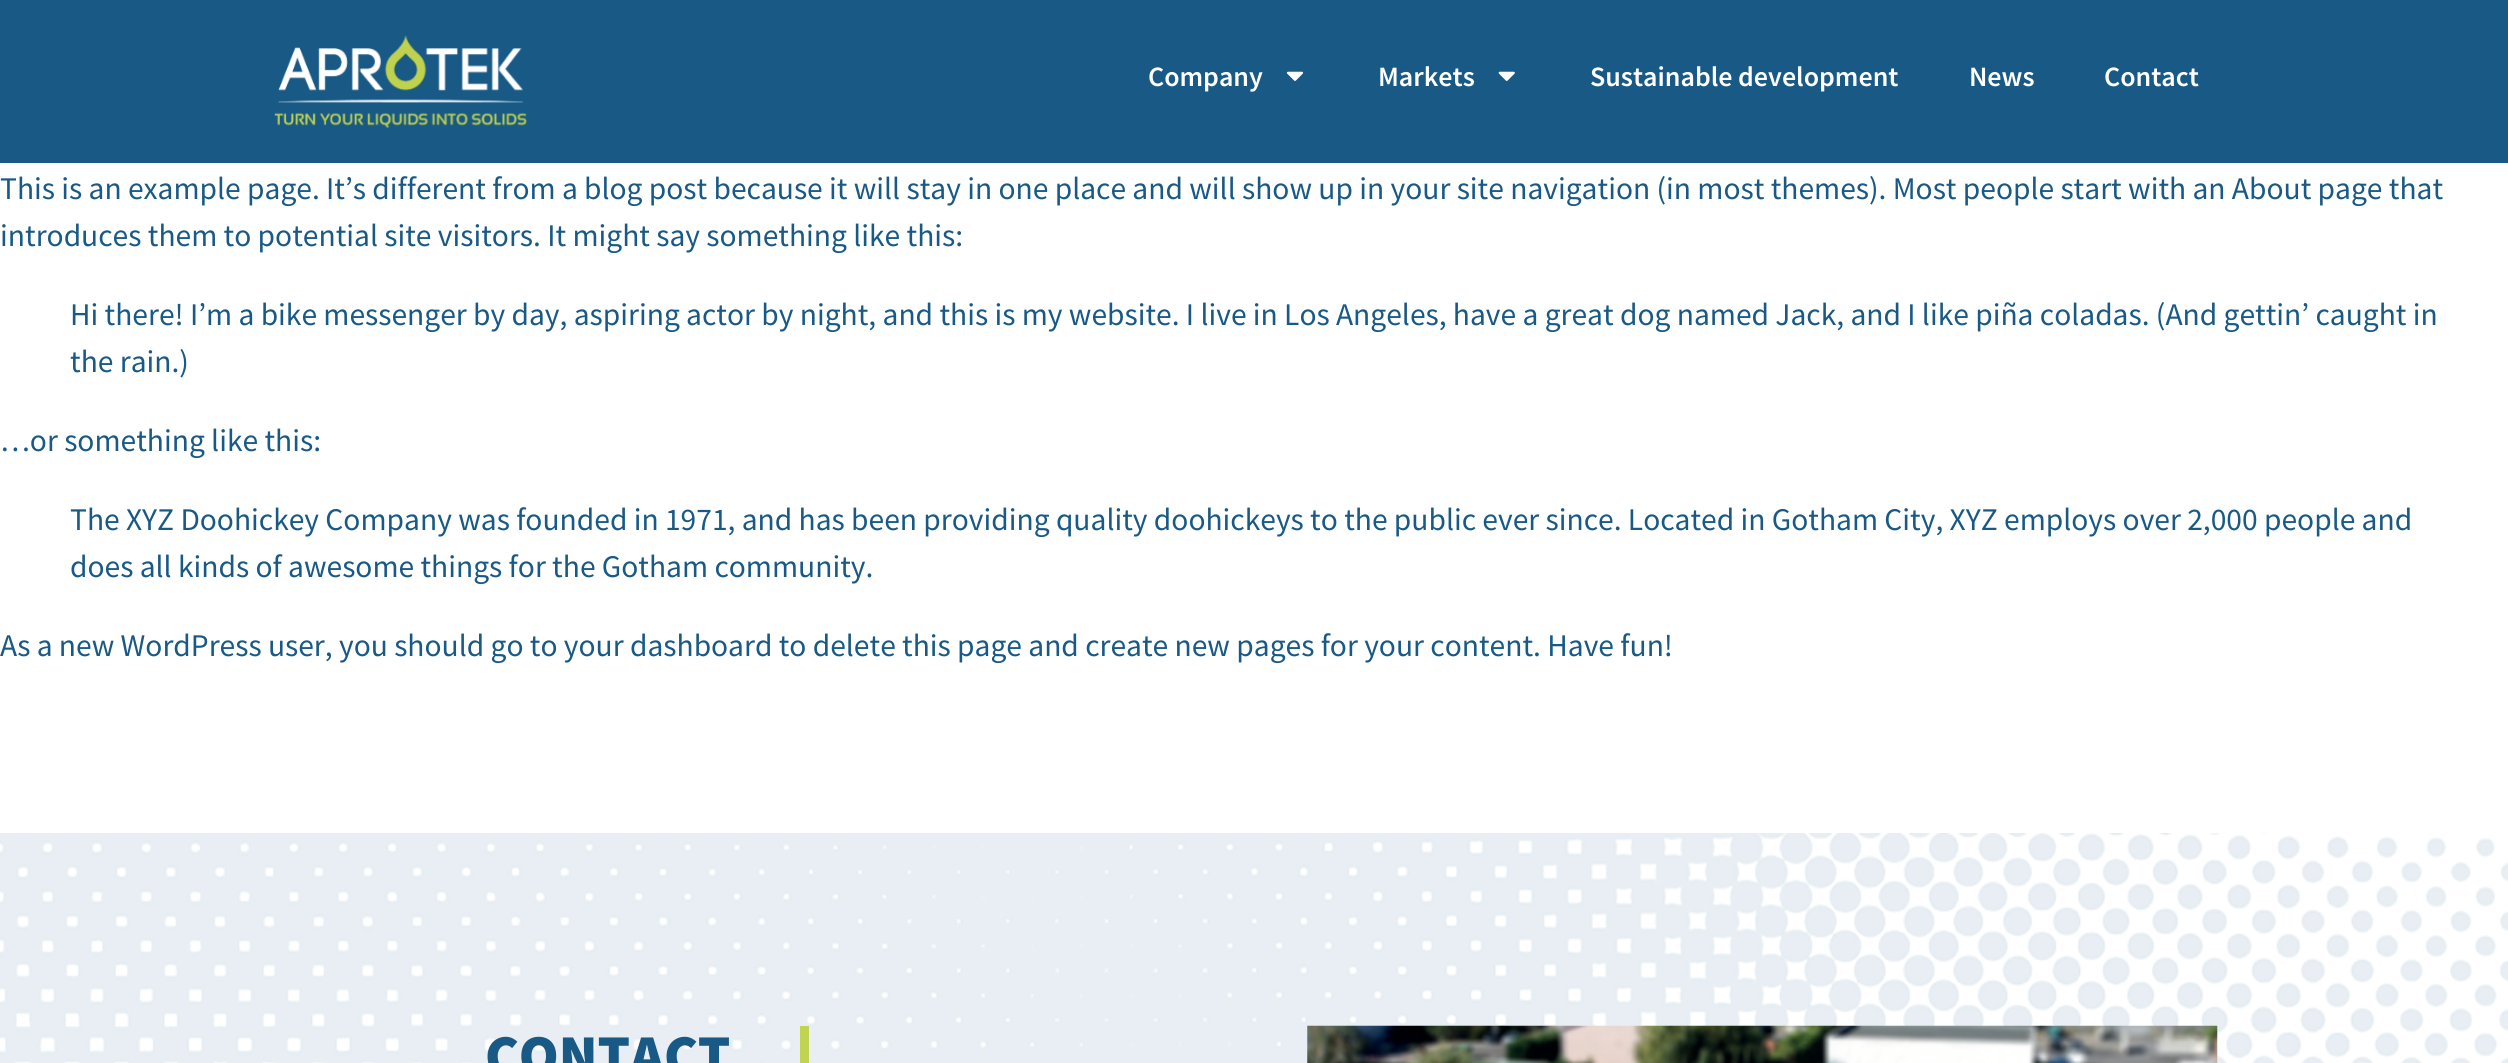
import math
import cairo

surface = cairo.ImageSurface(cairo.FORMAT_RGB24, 2508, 1063)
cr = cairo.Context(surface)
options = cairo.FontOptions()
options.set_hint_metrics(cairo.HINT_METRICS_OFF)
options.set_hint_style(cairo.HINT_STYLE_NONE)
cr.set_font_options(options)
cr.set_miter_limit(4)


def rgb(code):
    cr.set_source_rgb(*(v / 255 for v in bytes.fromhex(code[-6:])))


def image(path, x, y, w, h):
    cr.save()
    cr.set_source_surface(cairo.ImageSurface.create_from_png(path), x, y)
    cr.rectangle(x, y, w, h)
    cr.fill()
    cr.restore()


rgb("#ffffff")
cr.paint()
rgb("#185986")
cr.rectangle(0, 0, 2508, 163)
cr.fill()
image("img/1.png", 274, 35, 253, 93)
image("img/2.png", 1286, 71, 18, 10)
image("img/3.png", 1498, 71, 17, 10)
image("img/4.png", 0, 833, 2508, 230)
rgb("#c1d350")
cr.rectangle(800, 1026, 9, 37)
cr.fill()
image("img/5.png", 1307, 1025, 911, 38)
cr.select_font_face("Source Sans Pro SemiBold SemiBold")
cr.set_font_size(28)
rgb("#ffffff")
for x, y, s in [
    (1148, 86, "Company"),
    (1378, 86, "Markets"),
    (1590, 86, "Sustainable development"),
    (1969, 86, "News"),
    (2104, 86, "Contact"),
]:
    cr.move_to(x, y)
    cr.show_text(s)
cr.select_font_face("Source Sans Pro")
cr.set_font_size(31.5)
rgb("#185986")
for x, y, s in [
    (0, 199, "This is an example page. It’s different from a blog post because it will stay in one place and will show up in your site navigation (in most themes). Most people start with an About page that"),
    (0, 246, "introduces them to potential site visitors. It might say something like this:"),
    (70, 325, "Hi there! I’m a bike messenger by day, aspiring actor by night, and this is my website. I live in Los Angeles, have a great dog named Jack, and I like piña coladas. (And gettin’ caught in"),
    (70, 372, "the rain.)"),
    (0, 451, "…or something like this:"),
    (70, 530, "The XYZ Doohickey Company was founded in 1971, and has been providing quality doohickeys to the public ever since. Located in Gotham City, XYZ employs over 2,000 people and"),
    (70, 577, "does all kinds of awesome things for the Gotham community."),
    (0, 656, "As a new WordPress user, you should go to your dashboard to delete this page and create new pages for your content. Have fun!"),
]:
    cr.move_to(x, y)
    cr.show_text(s)
cr.select_font_face("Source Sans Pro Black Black")
cr.set_font_size(57.75)
cr.move_to(485, 1075)
cr.show_text("CONTACT")
surface.write_to_png("page.png")
